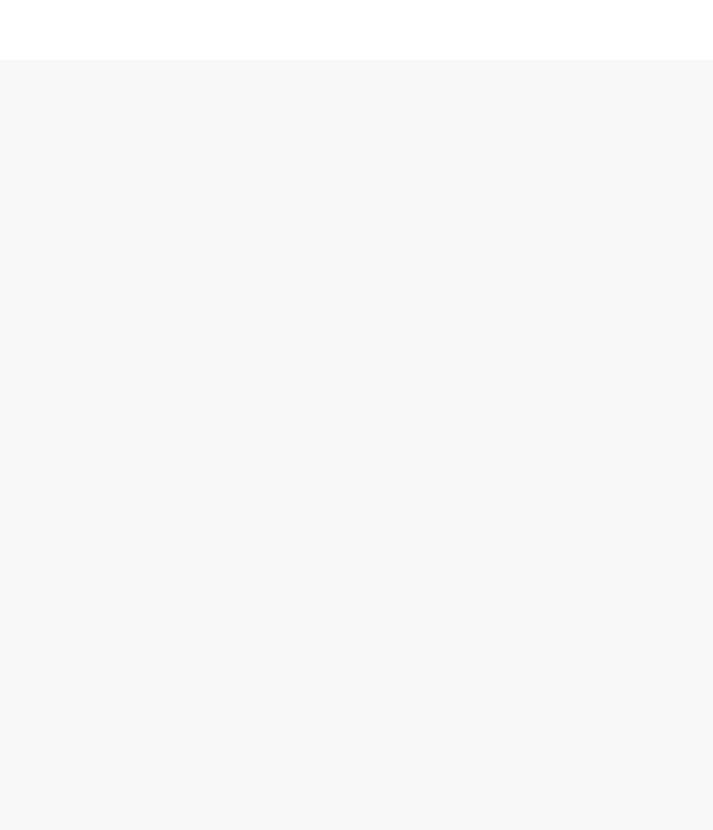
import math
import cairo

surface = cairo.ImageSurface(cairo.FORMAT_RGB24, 713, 830)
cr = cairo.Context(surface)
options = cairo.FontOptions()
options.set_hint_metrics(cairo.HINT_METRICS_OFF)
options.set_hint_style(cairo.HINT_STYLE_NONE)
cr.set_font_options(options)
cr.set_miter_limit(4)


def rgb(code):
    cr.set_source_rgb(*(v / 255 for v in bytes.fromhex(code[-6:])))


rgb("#ffffff")
cr.paint()
rgb("#f8f8f8")
cr.rectangle(0, 60, 713, 770)
cr.fill()
surface.write_to_png("page.png")
